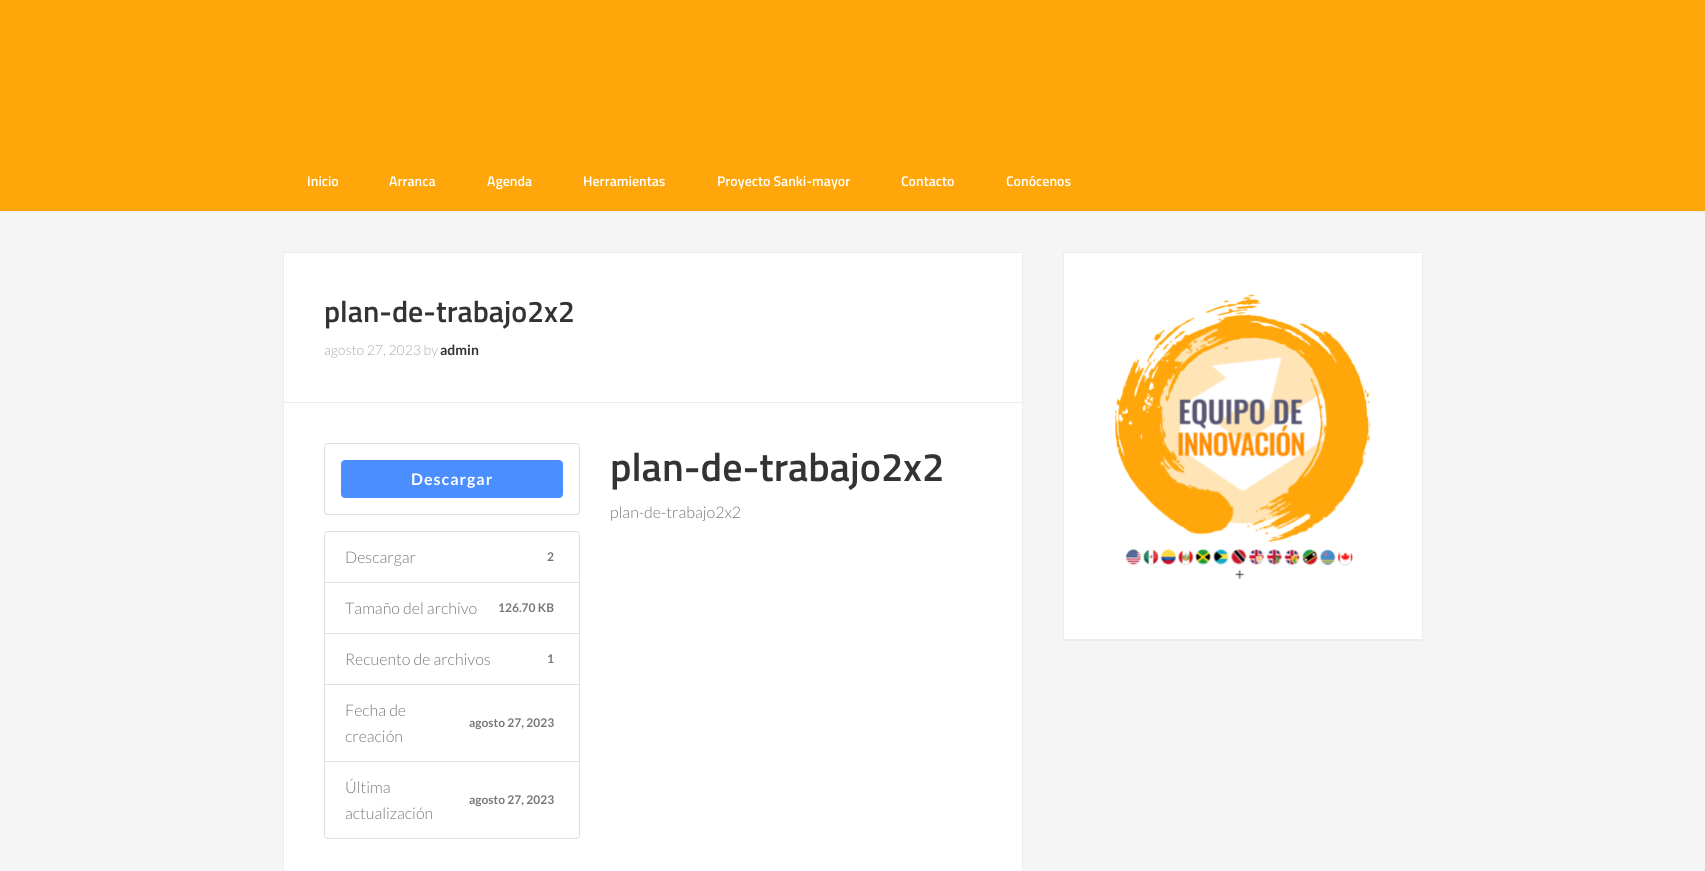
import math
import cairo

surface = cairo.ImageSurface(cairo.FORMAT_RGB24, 1705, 871)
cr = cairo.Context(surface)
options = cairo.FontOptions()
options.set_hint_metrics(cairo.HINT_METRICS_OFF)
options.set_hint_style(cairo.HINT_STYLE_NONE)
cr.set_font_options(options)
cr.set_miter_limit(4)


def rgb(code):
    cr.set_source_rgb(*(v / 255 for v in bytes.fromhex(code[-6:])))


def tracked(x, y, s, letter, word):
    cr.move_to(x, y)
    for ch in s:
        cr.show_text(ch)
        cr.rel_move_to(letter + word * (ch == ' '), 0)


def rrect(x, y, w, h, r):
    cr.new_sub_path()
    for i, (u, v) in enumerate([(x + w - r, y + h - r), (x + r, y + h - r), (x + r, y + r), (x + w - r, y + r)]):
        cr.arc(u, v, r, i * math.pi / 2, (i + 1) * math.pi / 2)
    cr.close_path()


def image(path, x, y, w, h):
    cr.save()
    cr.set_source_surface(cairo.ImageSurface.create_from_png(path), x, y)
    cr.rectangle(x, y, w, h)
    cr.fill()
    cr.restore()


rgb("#ffa60a")
cr.paint()
rgb("#f5f5f5")
cr.rectangle(0, 212, 1705, 659)
cr.fill()
rgb("#ececec")
cr.rectangle(0, 211, 1705, 1)
cr.fill()
rgb("#ffffff")
cr.rectangle(283.5, 252.5, 739, 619)
cr.fill_preserve()
rgb("#ececec")
cr.set_line_width(1)
cr.stroke()
cr.rectangle(284, 402, 738, 1)
cr.fill()
rrect(324.5, 443.5, 255, 71, 3.5)
rgb("#dfdfdf")
cr.stroke()
rgb("#4a8eff")
rrect(341.5, 460.5, 221, 37, 3.5)
cr.fill_preserve()
cr.stroke()
cr.new_path()
cr.move_to(328, 531.5)
cr.line_to(576, 531.5)
cr.curve_to(578, 531.5, 579.5, 533, 579.5, 535)
cr.line_to(579.5, 582.5)
cr.line_to(324.5, 582.5)
cr.line_to(324.5, 535)
cr.curve_to(324.5, 533, 326, 531.5, 328, 531.5)
cr.close_path()
rgb("#dfdfdf")
cr.stroke()
cr.rectangle(324.5, 582.5, 255, 51)
cr.stroke()
cr.rectangle(324.5, 633.5, 255, 51)
cr.stroke()
cr.rectangle(324.5, 684.5, 255, 77)
cr.stroke()
rgb("#ffffff")
cr.new_path()
cr.move_to(324.5, 761.5)
cr.line_to(579.5, 761.5)
cr.line_to(579.5, 835)
cr.curve_to(579.5, 837, 578, 838.5, 576, 838.5)
cr.line_to(328, 838.5)
cr.curve_to(326, 838.5, 324.5, 837, 324.5, 835)
cr.close_path()
cr.fill_preserve()
rgb("#dfdfdf")
cr.stroke()
rgb("#ececec")
cr.rectangle(1063, 640, 360, 1)
cr.fill()
rgb("#ffffff")
cr.rectangle(1063.5, 252.5, 359, 387)
cr.fill_preserve()
rgb("#ececec")
cr.stroke()
image("img/1.png", 1115, 294, 256, 285)
cr.select_font_face("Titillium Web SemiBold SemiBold")
cr.set_font_size(14)
rgb("#ffffff")
for x, y, s in [
    (307, 186, "Inicio"),
    (389, 186, "Arranca"),
    (487, 186, "Agenda"),
    (583, 186, "Herramientas"),
    (717, 186, "Proyecto Sanki-mayor"),
    (901, 186, "Contacto"),
    (1006, 186, "Conócenos"),
]:
    cr.move_to(x, y)
    cr.show_text(s)
cr.set_font_size(30)
rgb("#333333")
cr.move_to(324, 322)
cr.show_text("plan-de-trabajo2x2")
cr.select_font_face("Lato Light")
cr.set_font_size(14)
rgb("#aaaaaa")
cr.move_to(324, 355)
cr.show_text("agosto 27, 2023 by")
cr.select_font_face("Lato", cairo.FONT_SLANT_NORMAL, cairo.FONT_WEIGHT_BOLD)
rgb("#333333")
cr.move_to(440, 355)
cr.show_text("admin")
cr.set_font_size(16)
rgb("#ffffff")
tracked(411, 485, "Descargar", 1, 0)
cr.select_font_face("Lato Light")
rgb("#777777")
cr.move_to(345, 563)
cr.show_text("Descargar")
cr.select_font_face("Lato", cairo.FONT_SLANT_NORMAL, cairo.FONT_WEIGHT_BOLD)
cr.set_font_size(12)
cr.move_to(547, 561)
cr.show_text("2")
cr.select_font_face("Lato Light")
cr.set_font_size(16)
cr.move_to(345, 614)
cr.show_text("Tamaño del archivo")
cr.select_font_face("Lato", cairo.FONT_SLANT_NORMAL, cairo.FONT_WEIGHT_BOLD)
cr.set_font_size(12)
cr.move_to(498, 612)
cr.show_text("126.70 KB")
cr.select_font_face("Lato Light")
cr.set_font_size(16)
cr.move_to(345, 665)
cr.show_text("Recuento de archivos")
cr.select_font_face("Lato", cairo.FONT_SLANT_NORMAL, cairo.FONT_WEIGHT_BOLD)
cr.set_font_size(12)
cr.move_to(547, 663)
cr.show_text("1")
cr.select_font_face("Lato Light")
cr.set_font_size(16)
cr.move_to(345, 716)
cr.show_text("Fecha de")
cr.select_font_face("Lato", cairo.FONT_SLANT_NORMAL, cairo.FONT_WEIGHT_BOLD)
cr.set_font_size(12)
cr.move_to(469, 727)
cr.show_text("agosto 27, 2023")
cr.select_font_face("Lato Light")
cr.set_font_size(16)
cr.move_to(345, 742)
cr.show_text("creación")
cr.move_to(345, 793)
cr.show_text("Última")
cr.select_font_face("Lato", cairo.FONT_SLANT_NORMAL, cairo.FONT_WEIGHT_BOLD)
cr.set_font_size(12)
cr.move_to(469, 804)
cr.show_text("agosto 27, 2023")
cr.select_font_face("Lato Light")
cr.set_font_size(16)
cr.move_to(345, 819)
cr.show_text("actualización")
cr.select_font_face("Titillium Web SemiBold SemiBold")
cr.set_font_size(40)
rgb("#333333")
cr.move_to(610, 481)
cr.show_text("plan-de-trabajo2x2")
cr.select_font_face("Lato Light")
cr.set_font_size(16)
rgb("#777777")
cr.move_to(610, 518)
cr.show_text("plan-de-trabajo2x2")
surface.write_to_png("page.png")
